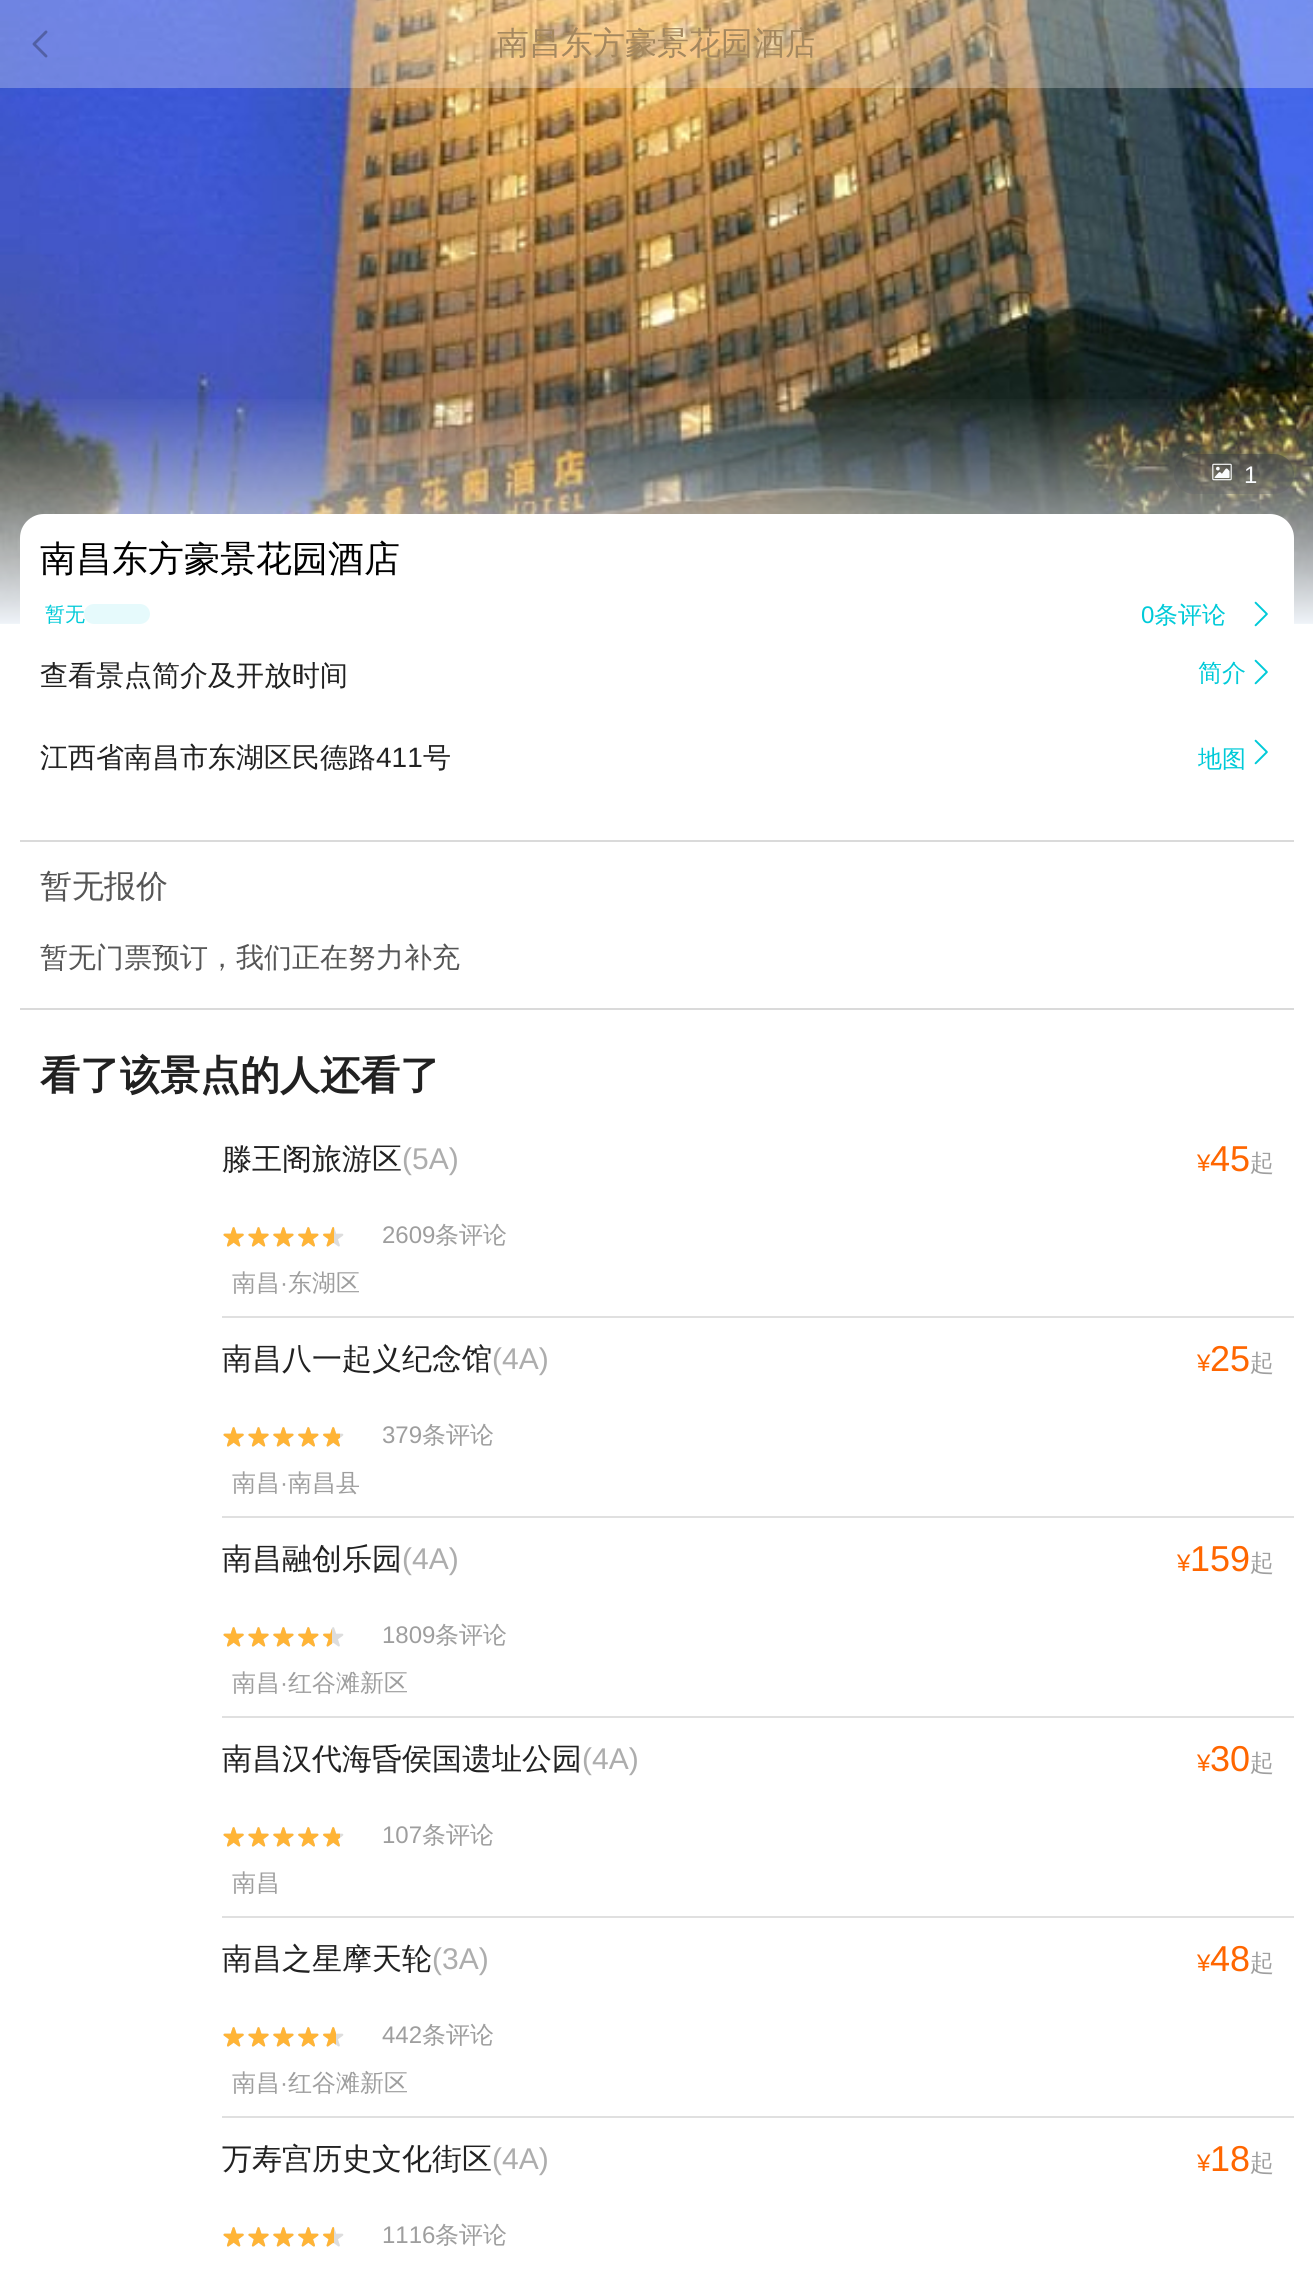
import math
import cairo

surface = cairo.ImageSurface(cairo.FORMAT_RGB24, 1313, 2276)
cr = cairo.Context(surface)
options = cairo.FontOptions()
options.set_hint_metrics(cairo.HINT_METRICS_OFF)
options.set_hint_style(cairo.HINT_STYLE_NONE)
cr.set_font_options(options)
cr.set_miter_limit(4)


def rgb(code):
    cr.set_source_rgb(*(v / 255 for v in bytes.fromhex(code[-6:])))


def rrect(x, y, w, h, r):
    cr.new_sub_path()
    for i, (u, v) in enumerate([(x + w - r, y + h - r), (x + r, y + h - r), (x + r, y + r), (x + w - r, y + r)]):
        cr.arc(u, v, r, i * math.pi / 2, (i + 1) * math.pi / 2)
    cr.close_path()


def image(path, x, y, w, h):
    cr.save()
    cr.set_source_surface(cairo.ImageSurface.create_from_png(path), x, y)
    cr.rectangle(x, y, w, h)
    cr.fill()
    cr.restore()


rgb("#ffffff")
cr.paint()
image("img/2.png", 0, 0, 1313, 623)
cr.set_source_rgba(1, 1, 1, 0.27)
cr.rectangle(0, 0, 1313, 88)
cr.fill()
image("img/1.png", 32, 30, 16, 28)
cr.set_source_rgba(0, 0, 0, 0.5)
rrect(1174, 454, 120, 40, 20)
cr.fill()
image("img/3.png", 1212, 463, 20, 18)
rgb("#dadada")
cr.rectangle(20, 840, 1274, 2)
cr.fill()
cr.rectangle(20, 1008, 1274, 2)
cr.fill()
image("img/5.png", 223, 1227, 121, 20)
image("img/6.png", 223, 1227, 111, 20)
rgb("#e0e0e0")
cr.rectangle(222, 1316, 1072, 2)
cr.fill()
image("img/5.png", 223, 1427, 121, 20)
image("img/7.png", 223, 1427, 117, 20)
cr.rectangle(222, 1516, 1072, 2)
cr.fill()
image("img/5.png", 223, 1627, 121, 20)
image("img/8.png", 223, 1627, 109, 20)
cr.rectangle(222, 1716, 1072, 2)
cr.fill()
image("img/5.png", 223, 1827, 121, 20)
image("img/7.png", 223, 1827, 117, 20)
cr.rectangle(222, 1916, 1072, 2)
cr.fill()
image("img/5.png", 223, 2027, 121, 20)
image("img/9.png", 223, 2027, 113, 20)
cr.rectangle(222, 2116, 1072, 2)
cr.fill()
image("img/5.png", 223, 2227, 121, 20)
image("img/6.png", 223, 2227, 111, 20)
cr.select_font_face("WenQuanYi Zen Hei Medium")
cr.set_font_size(32)
rgb("#a4875e")
cr.move_to(497, 54)
cr.show_text("南昌东方豪景花园酒店")
cr.select_font_face("Liberation Sans")
cr.set_font_size(24)
rgb("#ffffff")
cr.move_to(1244, 483)
cr.show_text("1")
gradient = cairo.LinearGradient(657, 394, 657, 624)
gradient.add_color_stop_rgba(0, 0.941, 0.957, 0.976, 0)
gradient.add_color_stop_rgba(1, 0.941, 0.957, 0.976, 1)
cr.set_source(gradient)
cr.rectangle(0, 399, 1313, 225)
cr.fill()
rgb("#ffffff")
rrect(20, 514, 1274, 306, 24)
cr.fill()
cr.select_font_face("WenQuanYi Zen Hei Medium")
cr.set_font_size(36)
rgb("#000000")
cr.move_to(40, 571)
cr.show_text("南昌东方豪景花园酒店")
cr.set_font_size(20)
rgb("#00cad8")
cr.move_to(45, 621)
cr.show_text("暂无")
rgb("#e6fafc")
rrect(84, 604, 66, 20, 10)
cr.fill()
cr.select_font_face("Liberation Sans")
cr.set_font_size(24)
rgb("#00cad8")
cr.move_to(1141, 623)
cr.show_text("0")
cr.select_font_face("WenQuanYi Zen Hei Medium")
cr.move_to(1154, 623)
cr.show_text("条评论")
image("img/4.png", 1254, 601, 14, 26)
cr.set_font_size(28)
rgb("#212121")
cr.move_to(40, 685)
cr.show_text("查看景点简介及开放时间")
cr.set_font_size(24)
rgb("#00cad8")
cr.move_to(1198, 681)
cr.show_text("简介")
image("img/4.png", 1254, 659, 14, 26)
cr.set_font_size(28)
rgb("#212121")
cr.move_to(40, 767)
cr.show_text("江西省南昌市东湖区民德路")
cr.select_font_face("Liberation Sans")
cr.move_to(376, 767)
cr.show_text("411")
cr.select_font_face("WenQuanYi Zen Hei Medium")
cr.move_to(423, 767)
cr.show_text("号")
cr.set_font_size(24)
rgb("#00cad8")
cr.move_to(1198, 767)
cr.show_text("地图")
image("img/4.png", 1254, 739, 14, 26)
cr.set_font_size(32)
rgb("#555555")
cr.move_to(40, 897)
cr.show_text("暂无报价")
cr.set_font_size(28)
cr.move_to(40, 967)
cr.show_text("暂无门票预订，我们正在努力补充")
cr.select_font_face("WenQuanYi Zen Hei", cairo.FONT_SLANT_NORMAL, cairo.FONT_WEIGHT_BOLD)
cr.set_font_size(40)
rgb("#212121")
cr.move_to(40, 1089)
cr.show_text("看了该景点的人还看了")
cr.select_font_face("WenQuanYi Zen Hei Medium")
cr.set_font_size(30)
cr.move_to(222, 1169)
cr.show_text("滕王阁旅游区")
cr.select_font_face("Liberation Sans")
rgb("#adadad")
cr.move_to(402, 1169)
cr.show_text("(5A)")
cr.set_font_size(24)
rgb("#ff6600")
cr.move_to(1197, 1171)
cr.show_text("¥")
cr.set_font_size(36)
cr.move_to(1210, 1171)
cr.show_text("45")
cr.select_font_face("WenQuanYi Zen Hei Medium")
cr.set_font_size(24)
rgb("#9e9e9e")
cr.move_to(1250, 1171)
cr.show_text("起")
cr.select_font_face("Liberation Sans")
cr.move_to(382, 1243)
cr.show_text("2609")
cr.select_font_face("WenQuanYi Zen Hei Medium")
cr.move_to(435, 1243)
cr.show_text("条评论")
cr.move_to(232, 1291)
cr.show_text("南昌")
cr.select_font_face("Liberation Sans")
cr.move_to(280, 1291)
cr.show_text("·")
cr.select_font_face("WenQuanYi Zen Hei Medium")
cr.move_to(288, 1291)
cr.show_text("东湖区")
cr.set_font_size(30)
rgb("#212121")
cr.move_to(222, 1369)
cr.show_text("南昌八一起义纪念馆")
cr.select_font_face("Liberation Sans")
rgb("#adadad")
cr.move_to(492, 1369)
cr.show_text("(4A)")
cr.set_font_size(24)
rgb("#ff6600")
cr.move_to(1197, 1371)
cr.show_text("¥")
cr.set_font_size(36)
cr.move_to(1210, 1371)
cr.show_text("25")
cr.select_font_face("WenQuanYi Zen Hei Medium")
cr.set_font_size(24)
rgb("#9e9e9e")
cr.move_to(1250, 1371)
cr.show_text("起")
cr.select_font_face("Liberation Sans")
cr.move_to(382, 1443)
cr.show_text("379")
cr.select_font_face("WenQuanYi Zen Hei Medium")
cr.move_to(422, 1443)
cr.show_text("条评论")
cr.move_to(232, 1491)
cr.show_text("南昌")
cr.select_font_face("Liberation Sans")
cr.move_to(280, 1491)
cr.show_text("·")
cr.select_font_face("WenQuanYi Zen Hei Medium")
cr.move_to(288, 1491)
cr.show_text("南昌县")
cr.set_font_size(30)
rgb("#212121")
cr.move_to(222, 1569)
cr.show_text("南昌融创乐园")
cr.select_font_face("Liberation Sans")
rgb("#adadad")
cr.move_to(402, 1569)
cr.show_text("(4A)")
cr.set_font_size(24)
rgb("#ff6600")
cr.move_to(1177, 1571)
cr.show_text("¥")
cr.set_font_size(36)
cr.move_to(1190, 1571)
cr.show_text("159")
cr.select_font_face("WenQuanYi Zen Hei Medium")
cr.set_font_size(24)
rgb("#9e9e9e")
cr.move_to(1250, 1571)
cr.show_text("起")
cr.select_font_face("Liberation Sans")
cr.move_to(382, 1643)
cr.show_text("1809")
cr.select_font_face("WenQuanYi Zen Hei Medium")
cr.move_to(435, 1643)
cr.show_text("条评论")
cr.move_to(232, 1691)
cr.show_text("南昌")
cr.select_font_face("Liberation Sans")
cr.move_to(280, 1691)
cr.show_text("·")
cr.select_font_face("WenQuanYi Zen Hei Medium")
cr.move_to(288, 1691)
cr.show_text("红谷滩新区")
cr.set_font_size(30)
rgb("#212121")
cr.move_to(222, 1769)
cr.show_text("南昌汉代海昏侯国遗址公园")
cr.select_font_face("Liberation Sans")
rgb("#adadad")
cr.move_to(582, 1769)
cr.show_text("(4A)")
cr.set_font_size(24)
rgb("#ff6600")
cr.move_to(1197, 1771)
cr.show_text("¥")
cr.set_font_size(36)
cr.move_to(1210, 1771)
cr.show_text("30")
cr.select_font_face("WenQuanYi Zen Hei Medium")
cr.set_font_size(24)
rgb("#9e9e9e")
cr.move_to(1250, 1771)
cr.show_text("起")
cr.select_font_face("Liberation Sans")
cr.move_to(382, 1843)
cr.show_text("107")
cr.select_font_face("WenQuanYi Zen Hei Medium")
cr.move_to(422, 1843)
cr.show_text("条评论")
cr.move_to(232, 1891)
cr.show_text("南昌")
cr.set_font_size(30)
rgb("#212121")
cr.move_to(222, 1969)
cr.show_text("南昌之星摩天轮")
cr.select_font_face("Liberation Sans")
rgb("#adadad")
cr.move_to(432, 1969)
cr.show_text("(3A)")
cr.set_font_size(24)
rgb("#ff6600")
cr.move_to(1197, 1971)
cr.show_text("¥")
cr.set_font_size(36)
cr.move_to(1210, 1971)
cr.show_text("48")
cr.select_font_face("WenQuanYi Zen Hei Medium")
cr.set_font_size(24)
rgb("#9e9e9e")
cr.move_to(1250, 1971)
cr.show_text("起")
cr.select_font_face("Liberation Sans")
cr.move_to(382, 2043)
cr.show_text("442")
cr.select_font_face("WenQuanYi Zen Hei Medium")
cr.move_to(422, 2043)
cr.show_text("条评论")
cr.move_to(232, 2091)
cr.show_text("南昌")
cr.select_font_face("Liberation Sans")
cr.move_to(280, 2091)
cr.show_text("·")
cr.select_font_face("WenQuanYi Zen Hei Medium")
cr.move_to(288, 2091)
cr.show_text("红谷滩新区")
cr.set_font_size(30)
rgb("#212121")
cr.move_to(222, 2169)
cr.show_text("万寿宫历史文化街区")
cr.select_font_face("Liberation Sans")
rgb("#adadad")
cr.move_to(492, 2169)
cr.show_text("(4A)")
cr.set_font_size(24)
rgb("#ff6600")
cr.move_to(1197, 2171)
cr.show_text("¥")
cr.set_font_size(36)
cr.move_to(1210, 2171)
cr.show_text("18")
cr.select_font_face("WenQuanYi Zen Hei Medium")
cr.set_font_size(24)
rgb("#9e9e9e")
cr.move_to(1250, 2171)
cr.show_text("起")
cr.select_font_face("Liberation Sans")
cr.move_to(382, 2243)
cr.show_text("1116")
cr.select_font_face("WenQuanYi Zen Hei Medium")
cr.move_to(435, 2243)
cr.show_text("条评论")
surface.write_to_png("page.png")
